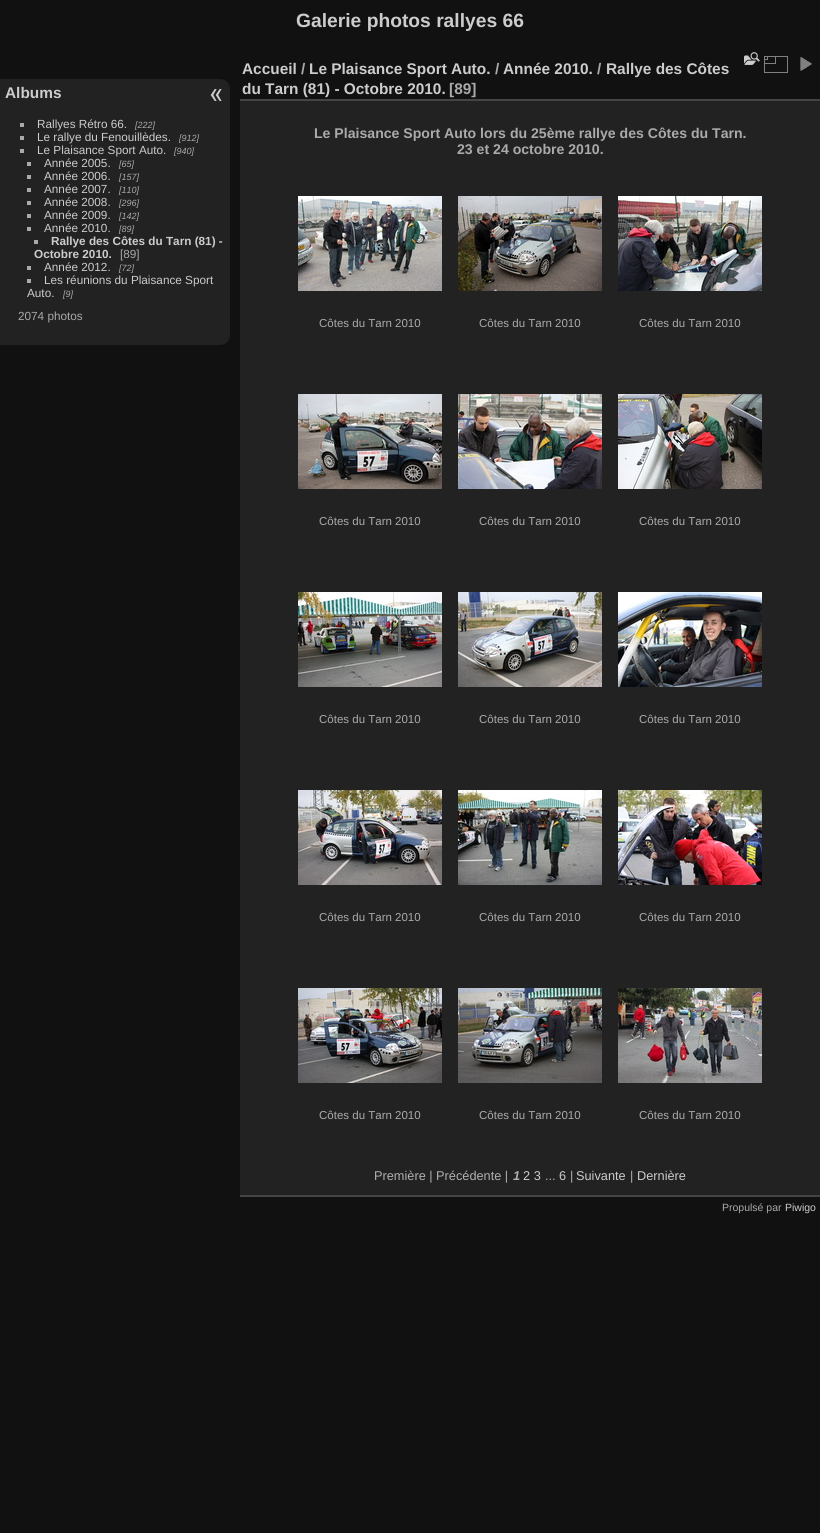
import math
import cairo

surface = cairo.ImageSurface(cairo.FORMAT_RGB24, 820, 1533)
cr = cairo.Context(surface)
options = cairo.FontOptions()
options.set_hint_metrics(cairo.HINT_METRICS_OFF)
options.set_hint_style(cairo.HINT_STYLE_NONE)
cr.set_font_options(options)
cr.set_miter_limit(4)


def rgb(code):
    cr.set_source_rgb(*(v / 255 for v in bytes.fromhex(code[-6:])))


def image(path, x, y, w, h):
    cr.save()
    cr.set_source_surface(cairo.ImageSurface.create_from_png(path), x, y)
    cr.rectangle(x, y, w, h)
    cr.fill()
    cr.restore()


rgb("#111111")
cr.paint()
rgb("#222222")
cr.new_path()
cr.move_to(0, 79)
cr.line_to(220, 79)
cr.curve_to(225.5, 79, 230, 83.5, 230, 89)
cr.line_to(230, 335)
cr.curve_to(230, 340.5, 225.5, 345, 220, 345)
cr.line_to(0, 345)
cr.close_path()
cr.fill()
for x, y, w, h, color in [
    (20, 123, 4, 4, "#aaaaaa"),
    (20, 136, 4, 4, "#aaaaaa"),
    (20, 149, 4, 4, "#aaaaaa"),
    (27, 162, 4, 4, "#aaaaaa"),
    (27, 175, 4, 4, "#aaaaaa"),
    (27, 188, 4, 4, "#aaaaaa"),
    (27, 201, 4, 4, "#aaaaaa"),
    (27, 214, 4, 4, "#aaaaaa"),
    (27, 227, 4, 4, "#aaaaaa"),
    (34, 240, 4, 4, "#aaaaaa"),
    (27, 266, 4, 4, "#aaaaaa"),
    (27, 279, 4, 4, "#aaaaaa"),
    (240, 101, 580, 1094, "#222222"),
    (240, 1195, 580, 2, "#444444"),
    (240, 99, 580, 2, "#444444"),
]:
    rgb(color)
    cr.rectangle(x, y, w, h)
    cr.fill()
image("img/1.png", 744, 52, 16, 13)
image("img/2.png", 764, 56, 24, 17)
image("img/3.png", 800, 57, 12, 14)
image("img/4.png", 298, 196, 144, 95)
image("img/5.png", 458, 196, 144, 95)
image("img/6.png", 618, 196, 144, 95)
image("img/7.png", 298, 394, 144, 95)
image("img/8.png", 458, 394, 144, 95)
image("img/9.png", 618, 394, 144, 95)
image("img/10.png", 298, 592, 144, 95)
image("img/11.png", 458, 592, 144, 95)
image("img/12.png", 618, 592, 144, 95)
image("img/13.png", 298, 790, 144, 95)
image("img/14.png", 458, 790, 144, 95)
image("img/15.png", 618, 790, 144, 95)
image("img/16.png", 298, 988, 144, 95)
image("img/17.png", 458, 988, 144, 95)
image("img/18.png", 618, 988, 144, 95)
image("img/19.png", 210, 89, 12, 12)
cr.select_font_face("Liberation Sans", cairo.FONT_SLANT_NORMAL, cairo.FONT_WEIGHT_BOLD)
cr.set_font_size(19.25)
rgb("#cccccc")
cr.move_to(296, 27)
cr.show_text("Galerie photos rallyes 66")
cr.set_font_size(15.4)
cr.move_to(5, 98)
cr.show_text("Albums")
cr.select_font_face("Liberation Sans")
cr.set_font_size(11.75)
cr.move_to(37, 128)
cr.show_text("Rallyes Rétro 66.")
cr.select_font_face("Liberation Sans", cairo.FONT_SLANT_ITALIC)
cr.set_font_size(9)
rgb("#aaaaaa")
cr.move_to(135, 128)
cr.show_text("[222]")
cr.select_font_face("Liberation Sans")
cr.set_font_size(11.75)
rgb("#cccccc")
cr.move_to(37, 141)
cr.show_text("Le rallye du Fenouillèdes.")
cr.select_font_face("Liberation Sans", cairo.FONT_SLANT_ITALIC)
cr.set_font_size(9)
rgb("#aaaaaa")
cr.move_to(179, 141)
cr.show_text("[912]")
cr.select_font_face("Liberation Sans")
cr.set_font_size(11.75)
rgb("#cccccc")
cr.move_to(37, 154)
cr.show_text("Le Plaisance Sport Auto.")
cr.select_font_face("Liberation Sans", cairo.FONT_SLANT_ITALIC)
cr.set_font_size(9)
rgb("#aaaaaa")
cr.move_to(174, 154)
cr.show_text("[940]")
cr.select_font_face("Liberation Sans")
cr.set_font_size(11.75)
rgb("#cccccc")
cr.move_to(44, 167)
cr.show_text("Année 2005.")
cr.select_font_face("Liberation Sans", cairo.FONT_SLANT_ITALIC)
cr.set_font_size(9)
rgb("#aaaaaa")
cr.move_to(119, 167)
cr.show_text("[65]")
cr.select_font_face("Liberation Sans")
cr.set_font_size(11.75)
rgb("#cccccc")
cr.move_to(44, 180)
cr.show_text("Année 2006.")
cr.select_font_face("Liberation Sans", cairo.FONT_SLANT_ITALIC)
cr.set_font_size(9)
rgb("#aaaaaa")
cr.move_to(119, 180)
cr.show_text("[157]")
cr.select_font_face("Liberation Sans")
cr.set_font_size(11.75)
rgb("#cccccc")
cr.move_to(44, 193)
cr.show_text("Année 2007.")
cr.select_font_face("Liberation Sans", cairo.FONT_SLANT_ITALIC)
cr.set_font_size(9)
rgb("#aaaaaa")
cr.move_to(119, 193)
cr.show_text("[110]")
cr.select_font_face("Liberation Sans")
cr.set_font_size(11.75)
rgb("#cccccc")
cr.move_to(44, 206)
cr.show_text("Année 2008.")
cr.select_font_face("Liberation Sans", cairo.FONT_SLANT_ITALIC)
cr.set_font_size(9)
rgb("#aaaaaa")
cr.move_to(119, 206)
cr.show_text("[296]")
cr.select_font_face("Liberation Sans")
cr.set_font_size(11.75)
rgb("#cccccc")
cr.move_to(44, 219)
cr.show_text("Année 2009.")
cr.select_font_face("Liberation Sans", cairo.FONT_SLANT_ITALIC)
cr.set_font_size(9)
rgb("#aaaaaa")
cr.move_to(119, 219)
cr.show_text("[142]")
cr.select_font_face("Liberation Sans")
cr.set_font_size(11.75)
rgb("#cccccc")
cr.move_to(44, 232)
cr.show_text("Année 2010.")
cr.select_font_face("Liberation Sans", cairo.FONT_SLANT_ITALIC)
cr.set_font_size(9)
rgb("#aaaaaa")
cr.move_to(119, 232)
cr.show_text("[89]")
cr.select_font_face("Liberation Sans", cairo.FONT_SLANT_NORMAL, cairo.FONT_WEIGHT_BOLD)
cr.set_font_size(11.75)
rgb("#cccccc")
cr.move_to(51, 245)
cr.show_text("Rallye des Côtes du Tarn (81) -")
cr.move_to(34, 258)
cr.show_text("Octobre 2010.")
cr.select_font_face("Liberation Sans")
rgb("#aaaaaa")
cr.move_to(120, 258)
cr.show_text("[89]")
rgb("#cccccc")
cr.move_to(44, 271)
cr.show_text("Année 2012.")
cr.select_font_face("Liberation Sans", cairo.FONT_SLANT_ITALIC)
cr.set_font_size(9)
rgb("#aaaaaa")
cr.move_to(119, 271)
cr.show_text("[72]")
cr.select_font_face("Liberation Sans")
cr.set_font_size(11.75)
rgb("#cccccc")
cr.move_to(44, 284)
cr.show_text("Les réunions du Plaisance Sport")
cr.move_to(27, 297)
cr.show_text("Auto.")
cr.select_font_face("Liberation Sans", cairo.FONT_SLANT_ITALIC)
cr.set_font_size(9)
rgb("#aaaaaa")
cr.move_to(63, 297)
cr.show_text("[9]")
cr.select_font_face("Liberation Sans")
cr.set_font_size(11.75)
cr.move_to(18, 320)
cr.show_text("2074 photos")
cr.select_font_face("Liberation Sans", cairo.FONT_SLANT_NORMAL, cairo.FONT_WEIGHT_BOLD)
cr.set_font_size(15.4)
rgb("#cccccc")
cr.move_to(242, 74)
cr.show_text("Accueil")
rgb("#aaaaaa")
cr.move_to(301, 74)
cr.show_text("/")
rgb("#cccccc")
cr.move_to(309, 74)
cr.show_text("Le Plaisance Sport Auto.")
rgb("#aaaaaa")
cr.move_to(495, 74)
cr.show_text("/")
rgb("#cccccc")
cr.move_to(503, 74)
cr.show_text("Année 2010.")
rgb("#aaaaaa")
cr.move_to(597, 74)
cr.show_text("/")
rgb("#cccccc")
cr.move_to(606, 74)
cr.show_text("Rallye des Côtes")
cr.move_to(242, 94)
cr.show_text("du Tarn (81) - Octobre 2010.")
rgb("#aaaaaa")
cr.move_to(449, 94)
cr.show_text("[89]")
cr.set_font_size(14.1)
cr.move_to(314, 138)
cr.show_text("Le Plaisance Sport Auto lors du 25ème rallye des Côtes du Tarn.")
cr.move_to(457, 154)
cr.show_text("23 et 24 octobre 2010.")
cr.select_font_face("Liberation Sans")
cr.set_font_size(11.5)
for x, y, s in [
    (319, 327, "Côtes du Tarn 2010"),
    (479, 327, "Côtes du Tarn 2010"),
    (639, 327, "Côtes du Tarn 2010"),
    (319, 525, "Côtes du Tarn 2010"),
    (479, 525, "Côtes du Tarn 2010"),
    (639, 525, "Côtes du Tarn 2010"),
    (319, 723, "Côtes du Tarn 2010"),
    (479, 723, "Côtes du Tarn 2010"),
    (639, 723, "Côtes du Tarn 2010"),
    (319, 921, "Côtes du Tarn 2010"),
    (479, 921, "Côtes du Tarn 2010"),
    (639, 921, "Côtes du Tarn 2010"),
    (319, 1119, "Côtes du Tarn 2010"),
    (479, 1119, "Côtes du Tarn 2010"),
    (639, 1119, "Côtes du Tarn 2010"),
]:
    cr.move_to(x, y)
    cr.show_text(s)
cr.set_font_size(12.75)
rgb("#b0b0b0")
cr.move_to(374, 1180)
cr.show_text("Première | Précédente |")
cr.select_font_face("Liberation Sans", cairo.FONT_SLANT_ITALIC, cairo.FONT_WEIGHT_BOLD)
cr.move_to(513, 1180)
cr.show_text("1")
cr.select_font_face("Liberation Sans")
rgb("#cccccc")
cr.move_to(523, 1180)
cr.show_text("2 3")
rgb("#b0b0b0")
cr.move_to(545, 1180)
cr.show_text("...")
rgb("#cccccc")
cr.move_to(559, 1180)
cr.show_text("6")
rgb("#b0b0b0")
cr.move_to(570, 1180)
cr.show_text("|")
rgb("#cccccc")
cr.move_to(576, 1180)
cr.show_text("Suivante")
rgb("#b0b0b0")
cr.move_to(630, 1180)
cr.show_text("|")
rgb("#cccccc")
cr.move_to(637, 1180)
cr.show_text("Dernière")
cr.set_font_size(10.5)
rgb("#aaaaaa")
cr.move_to(722, 1211)
cr.show_text("Propulsé par")
rgb("#cccccc")
cr.move_to(785, 1211)
cr.show_text("Piwigo")
surface.write_to_png("page.png")
